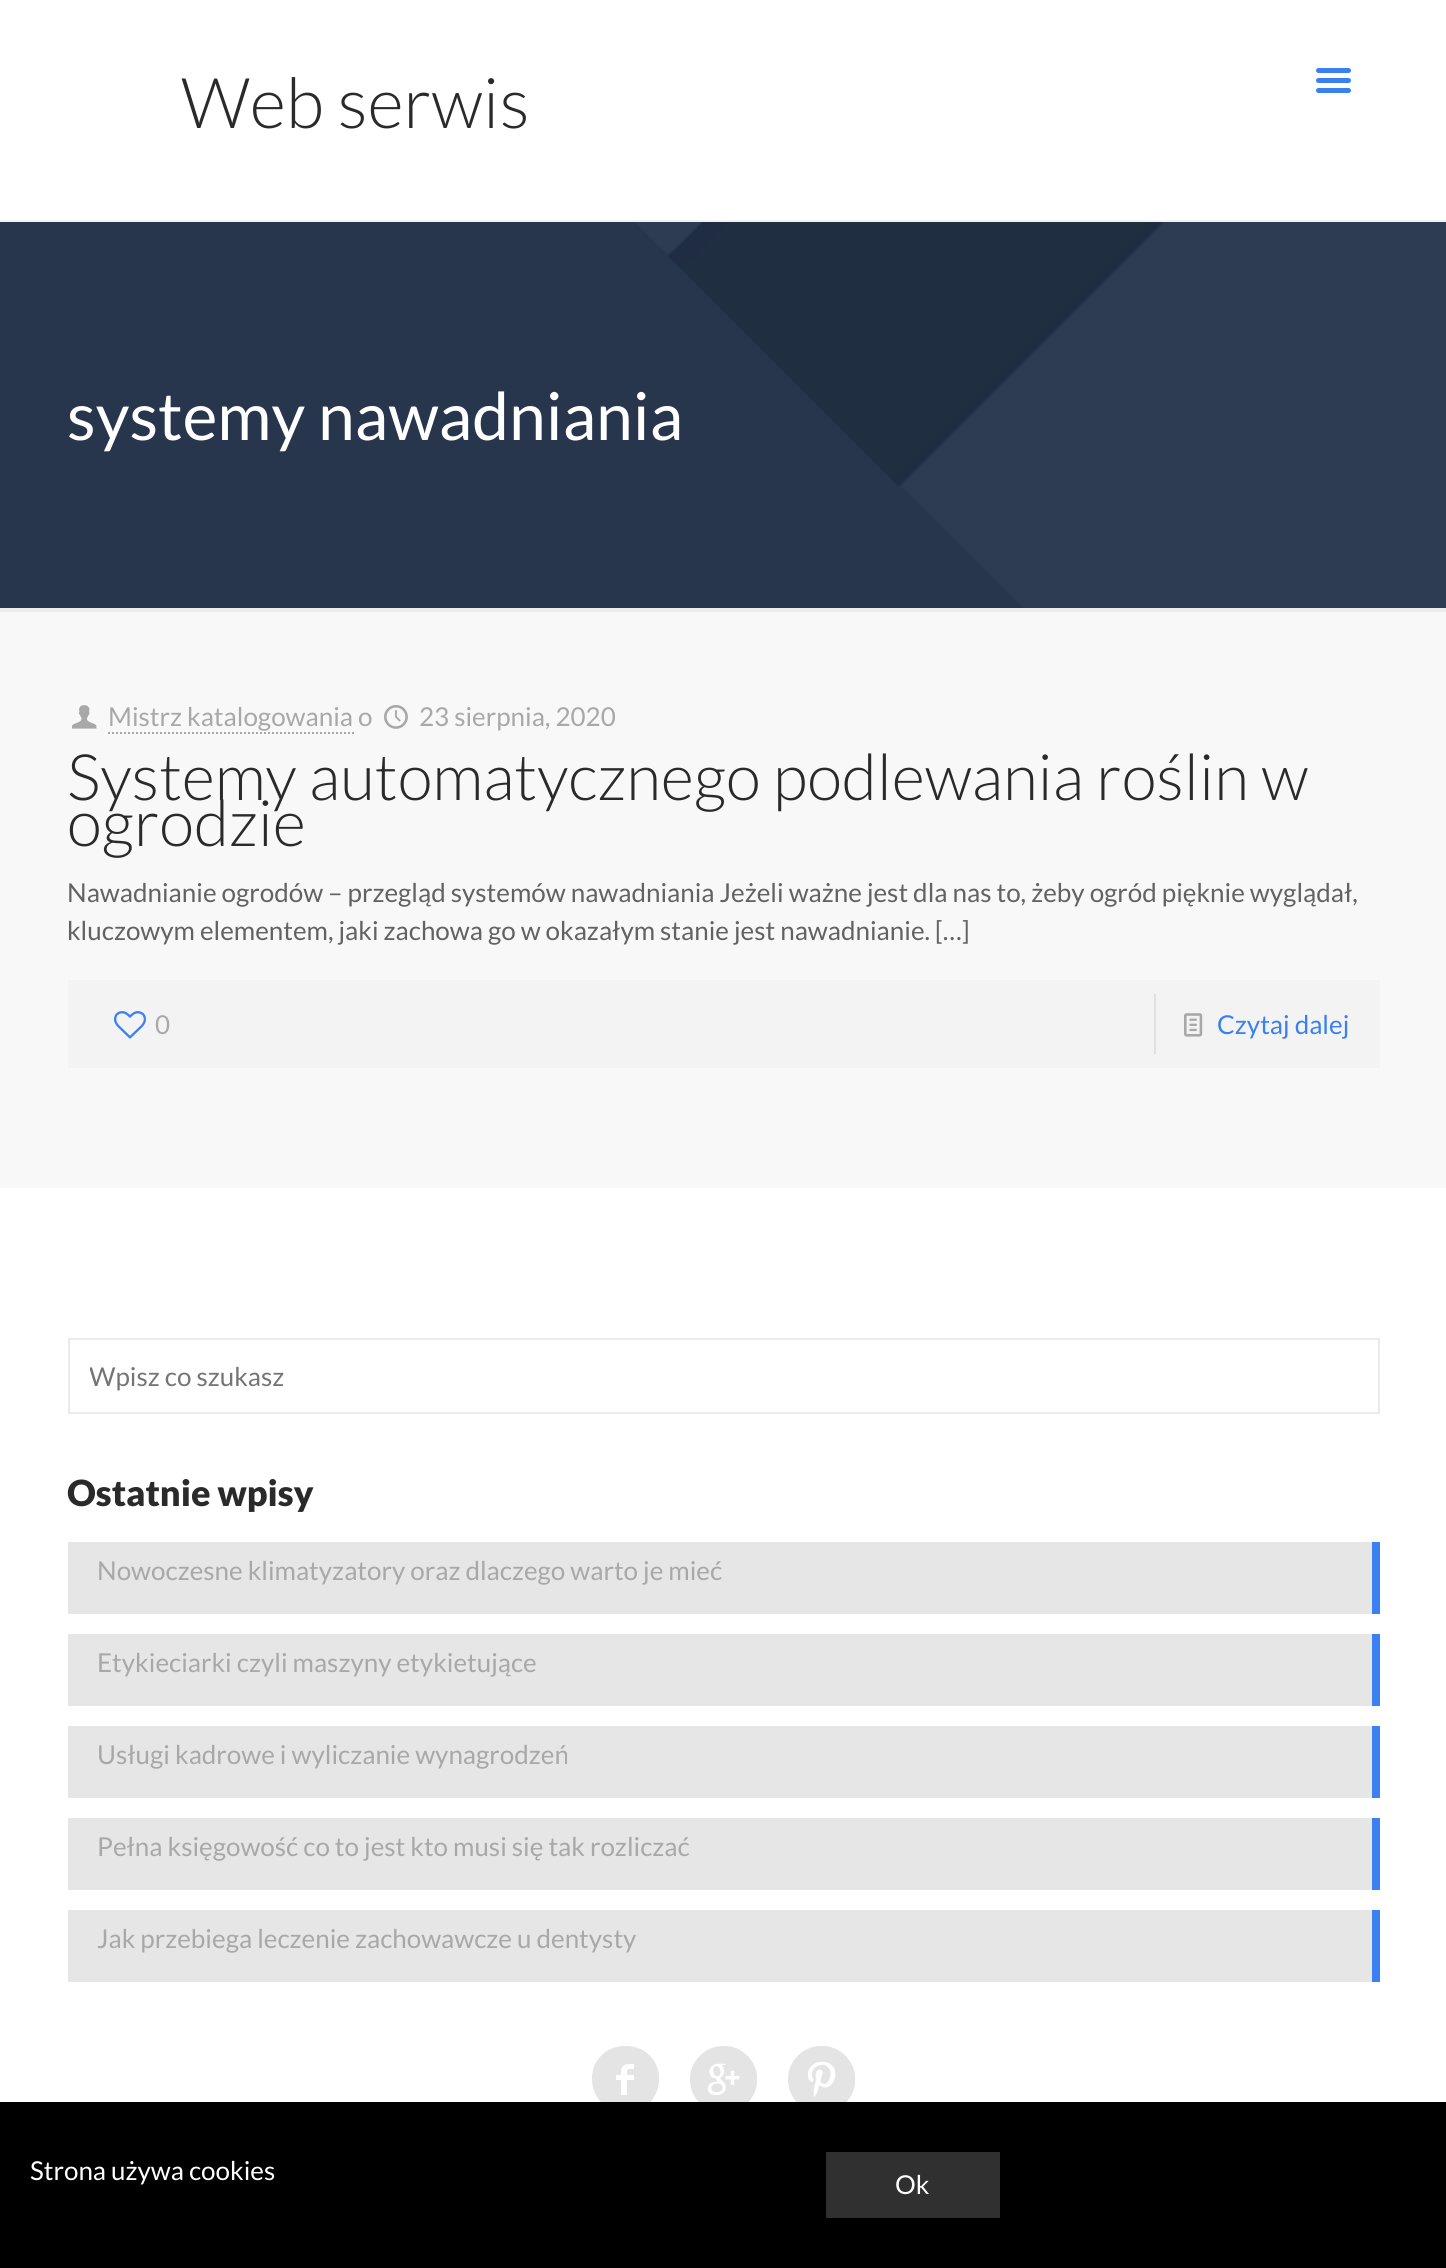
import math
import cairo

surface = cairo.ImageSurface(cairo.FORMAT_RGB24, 1446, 2268)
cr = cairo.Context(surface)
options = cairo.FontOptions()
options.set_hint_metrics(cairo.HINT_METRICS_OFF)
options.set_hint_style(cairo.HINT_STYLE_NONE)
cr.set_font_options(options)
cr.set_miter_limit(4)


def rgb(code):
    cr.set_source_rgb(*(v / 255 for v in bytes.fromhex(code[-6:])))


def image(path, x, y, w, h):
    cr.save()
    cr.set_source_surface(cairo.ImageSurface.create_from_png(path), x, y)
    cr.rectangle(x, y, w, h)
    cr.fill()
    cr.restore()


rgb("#f8f8f8")
cr.paint()
image("img/1.png", 0, 222, 1446, 386)
rgb("#ffffff")
cr.rectangle(0, 0, 1446, 220)
cr.fill()
rgb("#f2f2f2")
cr.rectangle(0, 220, 1446, 2)
cr.fill()
image("img/2.png", 1316, 68, 35, 25)
rgb("#ececec")
cr.rectangle(0, 608, 1446, 4)
cr.fill()
image("img/3.png", 72, 705, 25, 24)
cr.new_path()
cr.move_to(108, 733)
cr.line_to(354, 733)
rgb("#a8a8a8")
cr.set_dash([2, 2])
cr.stroke()
image("img/4.png", 384, 705, 24, 24)
rgb("#f3f3f3")
cr.rectangle(68, 980, 1312, 88)
cr.fill()
image("img/5.png", 114, 1011, 32, 28)
rgb("#e0e0e0")
cr.rectangle(1154, 994, 2, 60)
cr.fill()
image("img/6.png", 1184, 1013, 19, 24)
rgb("#ffffff")
cr.rectangle(0, 1188, 1446, 914)
cr.fill()
cr.rectangle(69, 1339, 1310, 74)
rgb("#ebebeb")
cr.set_dash([])
cr.stroke()
for x, y, w, h, color in [
    (68, 1542, 1304, 72, "#e6e6e6"),
    (1372, 1542, 8, 72, "#3a80f1"),
    (68, 1634, 1304, 72, "#e6e6e6"),
    (1372, 1634, 8, 72, "#3a80f1"),
    (68, 1726, 1304, 72, "#e6e6e6"),
    (1372, 1726, 8, 72, "#3a80f1"),
    (68, 1818, 1304, 72, "#e6e6e6"),
    (1372, 1818, 8, 72, "#3a80f1"),
    (68, 1910, 1304, 72, "#e6e6e6"),
    (1372, 1910, 8, 72, "#3a80f1"),
]:
    rgb(color)
    cr.rectangle(x, y, w, h)
    cr.fill()
rgb("#e4e4e4")
cr.new_path()
cr.move_to(626, 2046)
cr.curve_to(633, 2046, 641, 2048, 647, 2053)
cr.curve_to(671, 2073, 657, 2113, 626, 2113)
cr.curve_to(594, 2113, 580, 2073, 604, 2053)
cr.curve_to(610, 2048, 618, 2046, 626, 2046)
cr.close_path()
cr.move_to(634, 2069)
cr.line_to(634, 2064)
cr.curve_to(624, 2064, 621, 2064, 621, 2075)
cr.line_to(616, 2075)
cr.line_to(616, 2080)
cr.line_to(621, 2080)
cr.line_to(621, 2095)
cr.line_to(627, 2095)
cr.line_to(627, 2080)
cr.line_to(634, 2080)
cr.line_to(634, 2075)
cr.line_to(627, 2075)
cr.curve_to(627, 2068, 627, 2069, 634, 2069)
cr.close_path()
cr.fill()
image("img/7.png", 690, 2046, 68, 56)
image("img/8.png", 788, 2046, 68, 56)
rgb("#000000")
cr.rectangle(0, 2102, 1446, 166)
cr.fill()
rgb("#303030")
cr.rectangle(826, 2152, 174, 66)
cr.fill()
cr.select_font_face("Lato Light")
cr.set_font_size(70)
rgb("#2a2a2a")
cr.move_to(181, 128)
cr.show_text("Web serwis")
cr.select_font_face("Lato")
cr.set_font_size(66)
rgb("#ffffff")
cr.move_to(67, 440)
cr.show_text("systemy nawadniania")
cr.set_font_size(26)
rgb("#a8a8a8")
cr.move_to(108, 726)
cr.show_text("Mistrz katalogowania o")
cr.move_to(419, 726)
cr.show_text("23 sierpnia, 2020")
cr.select_font_face("Lato Light")
cr.set_font_size(64)
rgb("#2a2a2a")
cr.move_to(67, 800)
cr.show_text("Systemy automatycznego podlewania roślin w")
cr.move_to(67, 846)
cr.show_text("ogrodzie")
cr.select_font_face("Lato")
cr.set_font_size(26)
rgb("#626262")
cr.move_to(67, 902)
cr.show_text("Nawadnianie ogrodów – przegląd systemów nawadniania Jeżeli ważne jest dla nas to, żeby ogród pięknie wyglądał,")
cr.move_to(67, 940)
cr.show_text("kluczowym elementem, jaki zachowa go w okazałym stanie jest nawadnianie. […]")
rgb("#a8a8a8")
cr.move_to(155, 1034)
cr.show_text("0")
rgb("#3a80f1")
cr.move_to(1217, 1034)
cr.show_text("Czytaj dalej")
cr.save()
cr.rectangle(90, 1360, 1268, 32)
cr.clip()
rgb("#757575")
cr.move_to(89, 1386)
cr.show_text("Wpisz co szukasz")
cr.restore()
cr.select_font_face("Lato Black")
cr.set_font_size(36)
rgb("#2a2a2a")
cr.move_to(67, 1506)
cr.show_text("Ostatnie wpisy")
cr.select_font_face("Lato")
cr.set_font_size(26)
rgb("#a8a8a8")
for x, y, s in [
    (97, 1580, "Nowoczesne klimatyzatory oraz dlaczego warto je mieć"),
    (97, 1672, "Etykieciarki czyli maszyny etykietujące"),
    (97, 1764, "Usługi kadrowe i wyliczanie wynagrodzeń"),
    (97, 1856, "Pełna księgowość co to jest kto musi się tak rozliczać"),
    (97, 1948, "Jak przebiega leczenie zachowawcze u dentysty"),
]:
    cr.move_to(x, y)
    cr.show_text(s)
rgb("#ffffff")
cr.move_to(30, 2180)
cr.show_text("Strona używa cookies")
cr.move_to(895, 2194)
cr.show_text("Ok")
surface.write_to_png("page.png")
